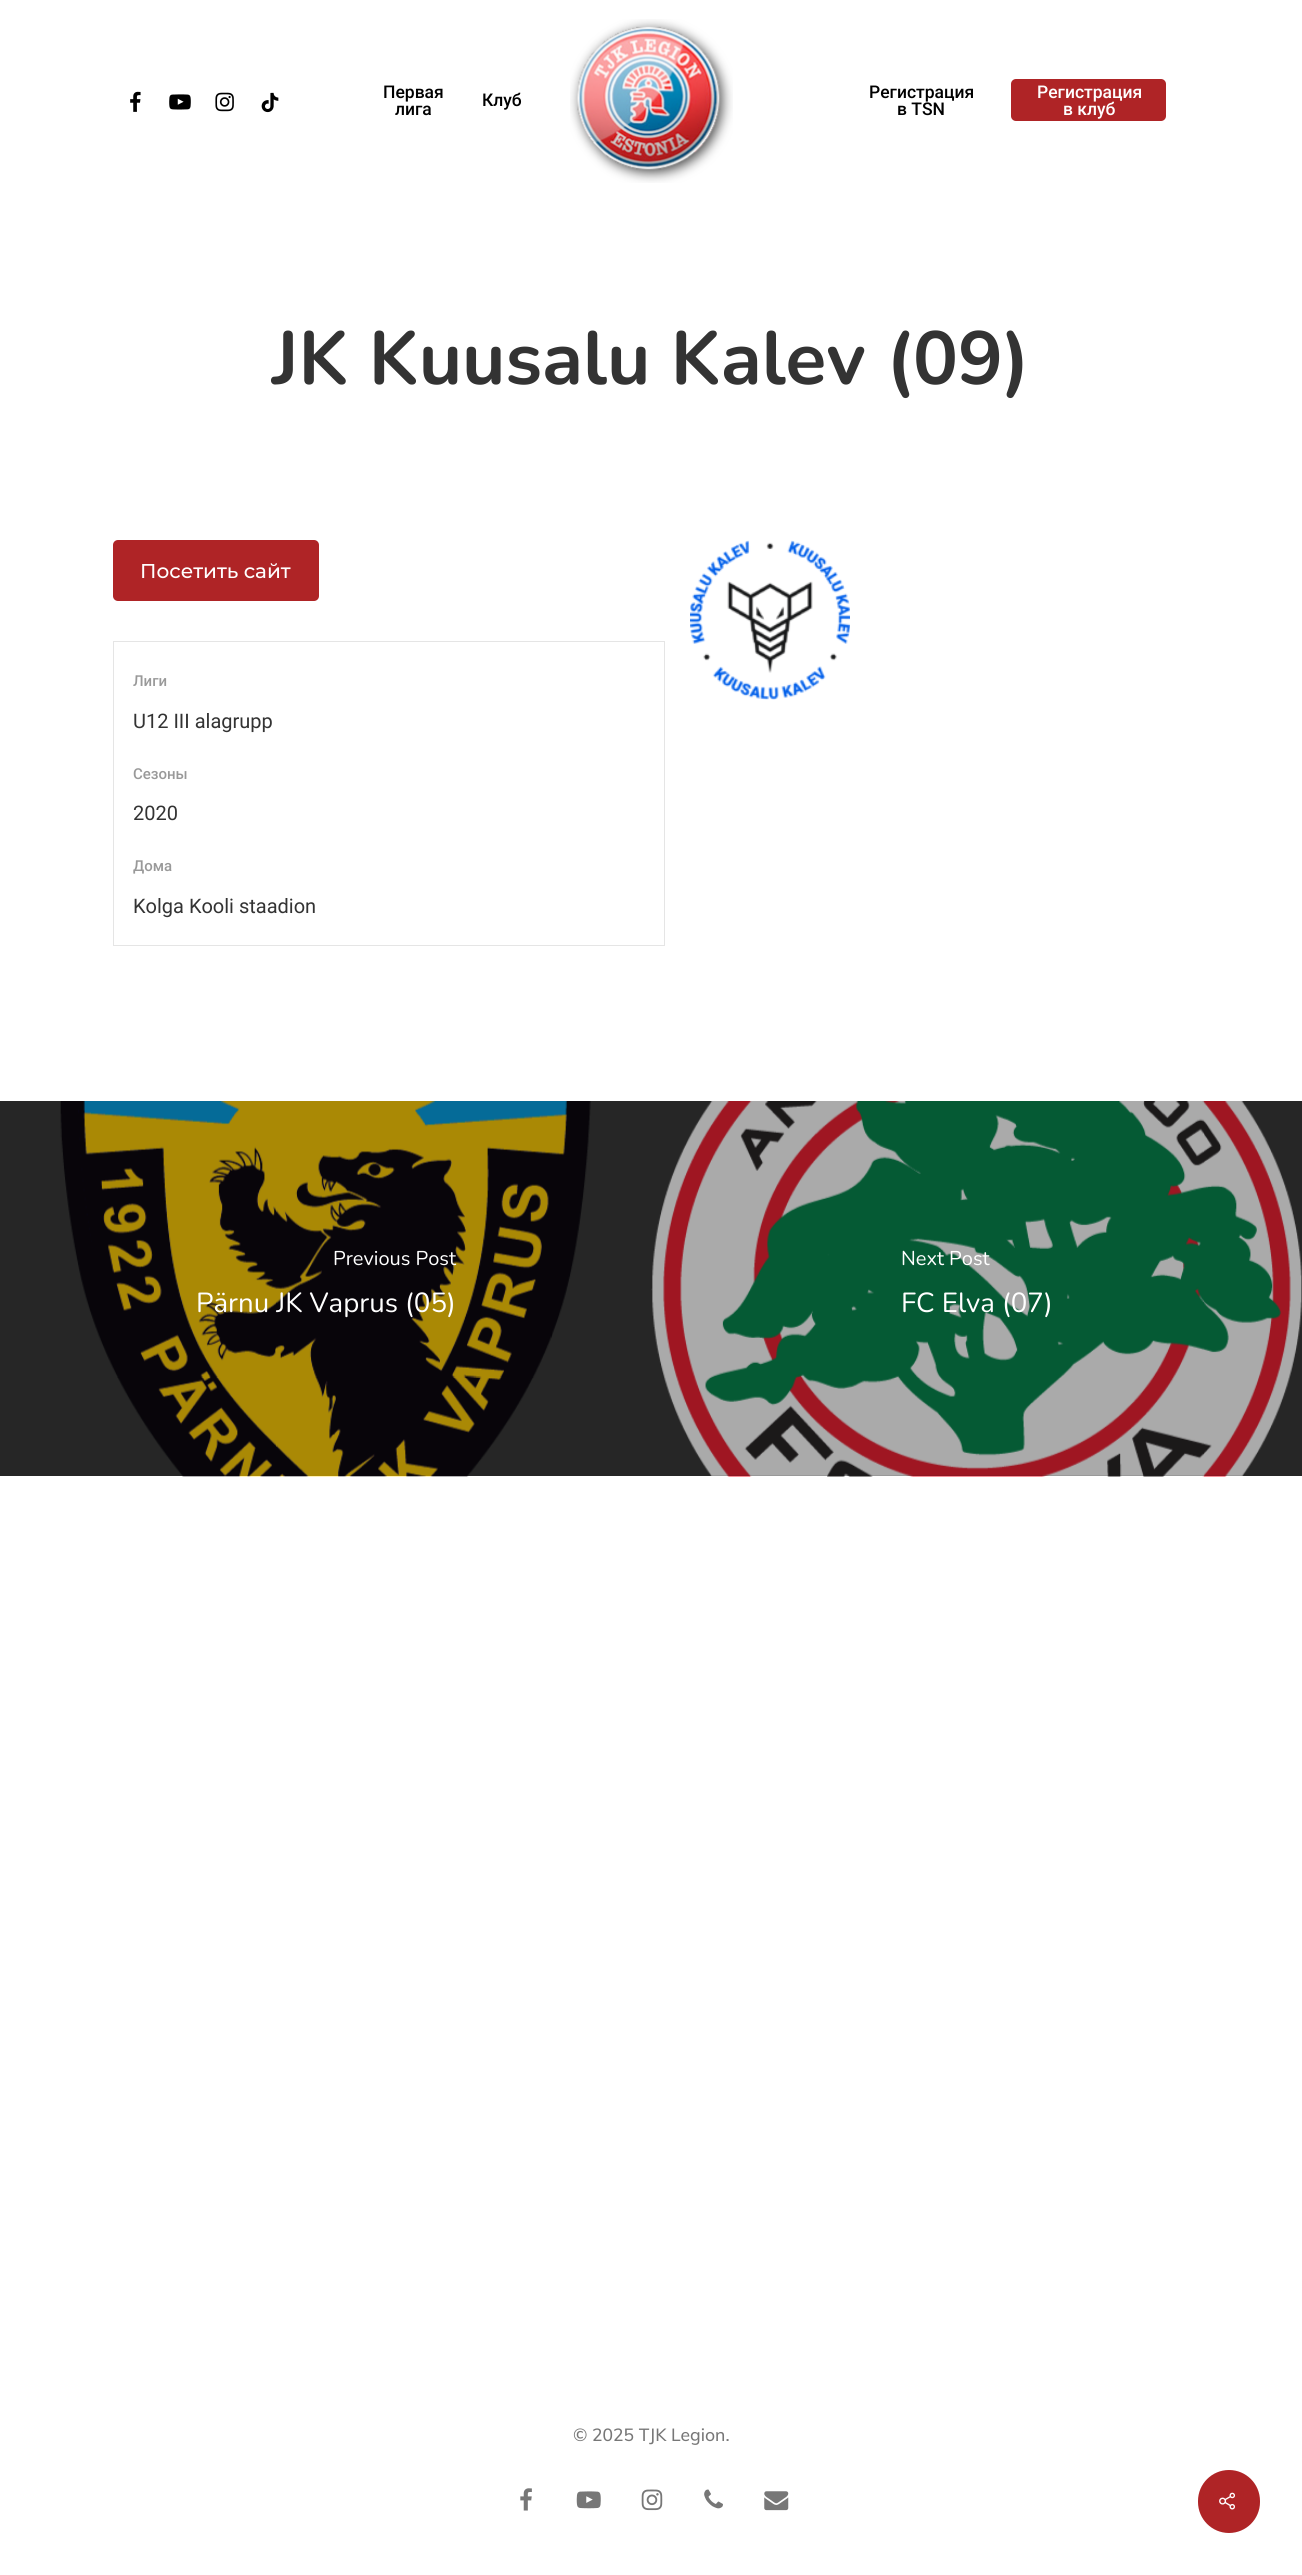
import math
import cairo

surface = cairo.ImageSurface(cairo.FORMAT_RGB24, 1302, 2575)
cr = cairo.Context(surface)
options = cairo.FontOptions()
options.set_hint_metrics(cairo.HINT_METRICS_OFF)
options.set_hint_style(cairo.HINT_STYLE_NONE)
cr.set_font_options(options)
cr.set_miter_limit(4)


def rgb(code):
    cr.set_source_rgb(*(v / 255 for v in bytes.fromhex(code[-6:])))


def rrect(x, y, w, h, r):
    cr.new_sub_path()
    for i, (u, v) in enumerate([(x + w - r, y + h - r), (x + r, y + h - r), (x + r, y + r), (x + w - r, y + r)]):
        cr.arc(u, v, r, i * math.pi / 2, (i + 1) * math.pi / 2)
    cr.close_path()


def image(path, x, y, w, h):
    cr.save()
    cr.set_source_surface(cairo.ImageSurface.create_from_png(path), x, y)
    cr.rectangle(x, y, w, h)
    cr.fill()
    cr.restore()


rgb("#ffffff")
cr.paint()
image("img/1.png", 570, 19, 163, 164)
image("img/2.png", 130, 91, 11, 21)
image("img/3.png", 169, 94, 22, 16)
image("img/4.png", 215, 92, 19, 20)
image("img/5.png", 261, 92, 18, 21)
rgb("#af2426")
rrect(1011, 79, 155, 42, 5)
cr.fill()
rrect(113, 540, 206, 61, 5)
cr.fill()
image("img/6.png", 690, 540, 160, 160)
cr.rectangle(113.5, 641.5, 551, 304)
rgb("#e5e5e5")
cr.set_line_width(1)
cr.stroke()
rgb("#262626")
cr.rectangle(0, 1101, 1302, 375)
cr.fill()
image("img/7.png", 60, 1101, 531, 376)
image("img/8.png", 651, 1101, 651, 376)
image("img/9.png", 520, 2488, 12, 23)
image("img/10.png", 576, 2491, 25, 18)
image("img/11.png", 641, 2489, 22, 22)
image("img/12.png", 704, 2489, 19, 20)
image("img/13.png", 764, 2491, 25, 20)
rgb("#af2426")
rrect(1198, 2470, 62, 63, 31)
cr.fill()
image("img/14.png", 1219, 2492, 16, 18)
cr.select_font_face("Roboto Medium")
cr.set_font_size(17.5)
rgb("#000000")
for x, y, s in [
    (383, 98, "Первая"),
    (395, 115, "лига"),
    (482, 106, "Клуб"),
    (869, 98, "Регистрация"),
    (897, 115, "в TSN"),
]:
    cr.move_to(x, y)
    cr.show_text(s)
rgb("#ffffff")
cr.move_to(1037, 98)
cr.show_text("Регистрация")
cr.move_to(1063, 115)
cr.show_text("в клуб")
cr.select_font_face("Nunito", cairo.FONT_SLANT_NORMAL, cairo.FONT_WEIGHT_BOLD)
cr.set_font_size(75)
rgb("#333333")
cr.move_to(272, 384)
cr.show_text("JK Kuusalu Kalev (09)")
cr.select_font_face("Montserrat Thin")
cr.set_font_size(20)
rgb("#ffffff")
cr.move_to(140, 578)
cr.show_text("Посетить сайт")
cr.select_font_face("Roboto Medium")
cr.set_font_size(15)
rgb("#999999")
cr.move_to(133, 686)
cr.show_text("Лиги")
cr.select_font_face("Roboto")
cr.set_font_size(20)
rgb("#333333")
cr.move_to(133, 728)
cr.show_text("U12 III alagrupp")
cr.select_font_face("Roboto Medium")
cr.set_font_size(15)
rgb("#999999")
cr.move_to(133, 779)
cr.show_text("Сезоны")
cr.select_font_face("Roboto")
cr.set_font_size(20)
rgb("#333333")
cr.move_to(133, 820)
cr.show_text("2020")
cr.select_font_face("Roboto Medium")
cr.set_font_size(15)
rgb("#999999")
cr.move_to(133, 871)
cr.show_text("Дома")
cr.select_font_face("Roboto")
cr.set_font_size(20)
rgb("#333333")
cr.move_to(133, 913)
cr.show_text("Kolga Kooli staadion")
cr.select_font_face("Nunito")
rgb("#ffffff")
cr.move_to(333, 1265)
cr.show_text("Previous Post")
cr.set_font_size(27.6)
cr.move_to(196, 1312)
cr.show_text("Pärnu JK Vaprus (05)")
cr.set_font_size(20)
cr.move_to(901, 1265)
cr.show_text("Next Post")
cr.set_font_size(27.6)
cr.move_to(901, 1312)
cr.show_text("FC Elva (07)")
cr.select_font_face("Muli Medium")
cr.set_font_size(17.5)
rgb("#777777")
cr.move_to(573, 2441)
cr.show_text("© 2025 TJK Legion.")
surface.write_to_png("page.png")
